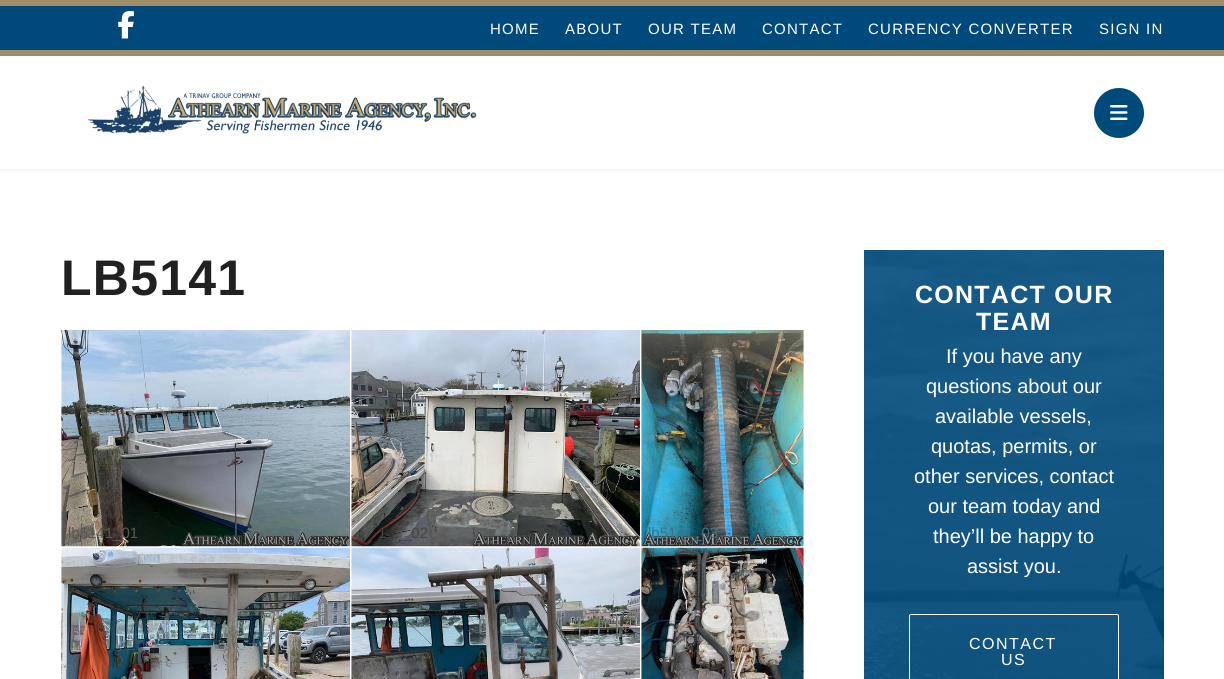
import math
import cairo

surface = cairo.ImageSurface(cairo.FORMAT_RGB24, 1224, 679)
cr = cairo.Context(surface)
options = cairo.FontOptions()
options.set_hint_metrics(cairo.HINT_METRICS_OFF)
options.set_hint_style(cairo.HINT_STYLE_NONE)
cr.set_font_options(options)
cr.set_miter_limit(4)


def rgb(code):
    cr.set_source_rgb(*(v / 255 for v in bytes.fromhex(code[-6:])))


def tracked(x, y, s, letter, word):
    cr.move_to(x, y)
    for ch in s:
        cr.show_text(ch)
        cr.rel_move_to(letter + word * (ch == ' '), 0)


def rrect(x, y, w, h, r):
    cr.new_sub_path()
    for i, (u, v) in enumerate([(x + w - r, y + h - r), (x + r, y + h - r), (x + r, y + r), (x + w - r, y + r)]):
        cr.arc(u, v, r, i * math.pi / 2, (i + 1) * math.pi / 2)
    cr.close_path()


def soft_shadow(x, y, w, h, r, blur, alpha):
    cr.push_group_with_content(cairo.CONTENT_ALPHA)
    cr.set_operator(cairo.OPERATOR_SOURCE)
    for i in range(15, -16, -2):
        e = blur * i / 6
        if min(w, h) + 2 * e > 0:
            cr.set_source_rgba(0, 0, 0, alpha * math.erfc((i - 1) / 8.5) / 2)
            rrect(x - e, y - e, w + 2 * e, h + 2 * e, max(0, min(r + e + blur * .6, min(w, h) / 2 + e)))
            cr.fill()
    cr.mask(cr.pop_group())


def image(path, x, y, w, h):
    cr.save()
    cr.set_source_surface(cairo.ImageSurface.create_from_png(path), x, y)
    cr.rectangle(x, y, w, h)
    cr.fill()
    cr.restore()


rgb("#ffffff")
cr.paint()
rgb("#000000")
soft_shadow(0, 0, 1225, 169, 0, 2.5, 0.1)
for x, y, w, h, color in [
    (0, 56, 1224, 113, "#ffffff"),
    (0, 6, 1224, 44, "#00497b"),
    (0, 0, 1224, 6, "#9e8f68"),
]:
    rgb(color)
    cr.rectangle(x, y, w, h)
    cr.fill()
image("img/1.png", 118, 10, 16, 29)
cr.rectangle(0, 50, 1224, 6)
cr.fill()
image("img/2.png", 88, 86, 389, 48)
rgb("#00497b")
cr.arc(1119, 113, 25, 0, 2 * math.pi)
cr.fill()
image("img/3.png", 1110, 105, 18, 15)
image("img/4.png", 61, 330, 289, 217)
image("img/5.png", 351, 330, 289, 217)
image("img/6.png", 641, 330, 163, 217)
image("img/7.png", 61, 547, 289, 132)
image("img/8.png", 351, 547, 289, 132)
image("img/9.png", 641, 547, 163, 132)
cr.rectangle(864, 250, 300, 429)
cr.fill()
image("img/10.png", 864, 250, 300, 429)
rrect(909.5, 614.5, 209, 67, 1.5)
rgb("#ffffff")
cr.set_line_width(1)
cr.stroke()
cr.select_font_face("Liberation Sans")
cr.set_font_size(15)
for x, y, s in [
    (490, 34, "HOME"),
    (565, 34, "ABOUT"),
    (648, 34, "OUR TEAM"),
    (762, 34, "CONTACT"),
    (868, 34, "CURRENCY CONVERTER"),
    (1099, 34, "SIGN IN"),
]:
    tracked(x, y, s, 1.25, 0)
cr.select_font_face("Liberation Sans", cairo.FONT_SLANT_NORMAL, cairo.FONT_WEIGHT_BOLD)
cr.set_font_size(50)
rgb("#212121")
tracked(61, 295, "LB5141", 1.25, 0)
cr.select_font_face("Liberation Sans")
cr.set_font_size(15)
rgb("#5b574f")
cr.move_to(68, 538)
cr.show_text("lb5141_01")
rgb("#464647")
cr.move_to(378, 538)
cr.show_text("1")
cr.move_to(403, 538)
cr.show_text("_02")
rgb("#3b7486")
cr.move_to(648, 538)
cr.show_text("lb5141_03")
cr.select_font_face("Liberation Sans", cairo.FONT_SLANT_NORMAL, cairo.FONT_WEIGHT_BOLD)
cr.set_font_size(25)
rgb("#ffffff")
tracked(915, 303, "CONTACT OUR", 1.25, 0)
tracked(976, 330, "TEAM", 1.25, 0)
cr.select_font_face("Liberation Sans")
cr.set_font_size(20)
for x, y, s in [
    (946, 363, "If you have any"),
    (926, 393, "questions about our"),
    (935, 423, "available vessels,"),
    (931, 453, "quotas, permits, or"),
    (914, 483, "other services, contact"),
    (928, 513, "our team today and"),
    (933, 543, "they’ll be happy to"),
    (967, 573, "assist you."),
]:
    cr.move_to(x, y)
    cr.show_text(s)
cr.set_font_size(16)
tracked(969, 649, "CONTACT", 1.5, 0)
tracked(1001, 665, "US", 1.5, 0)
surface.write_to_png("page.png")
